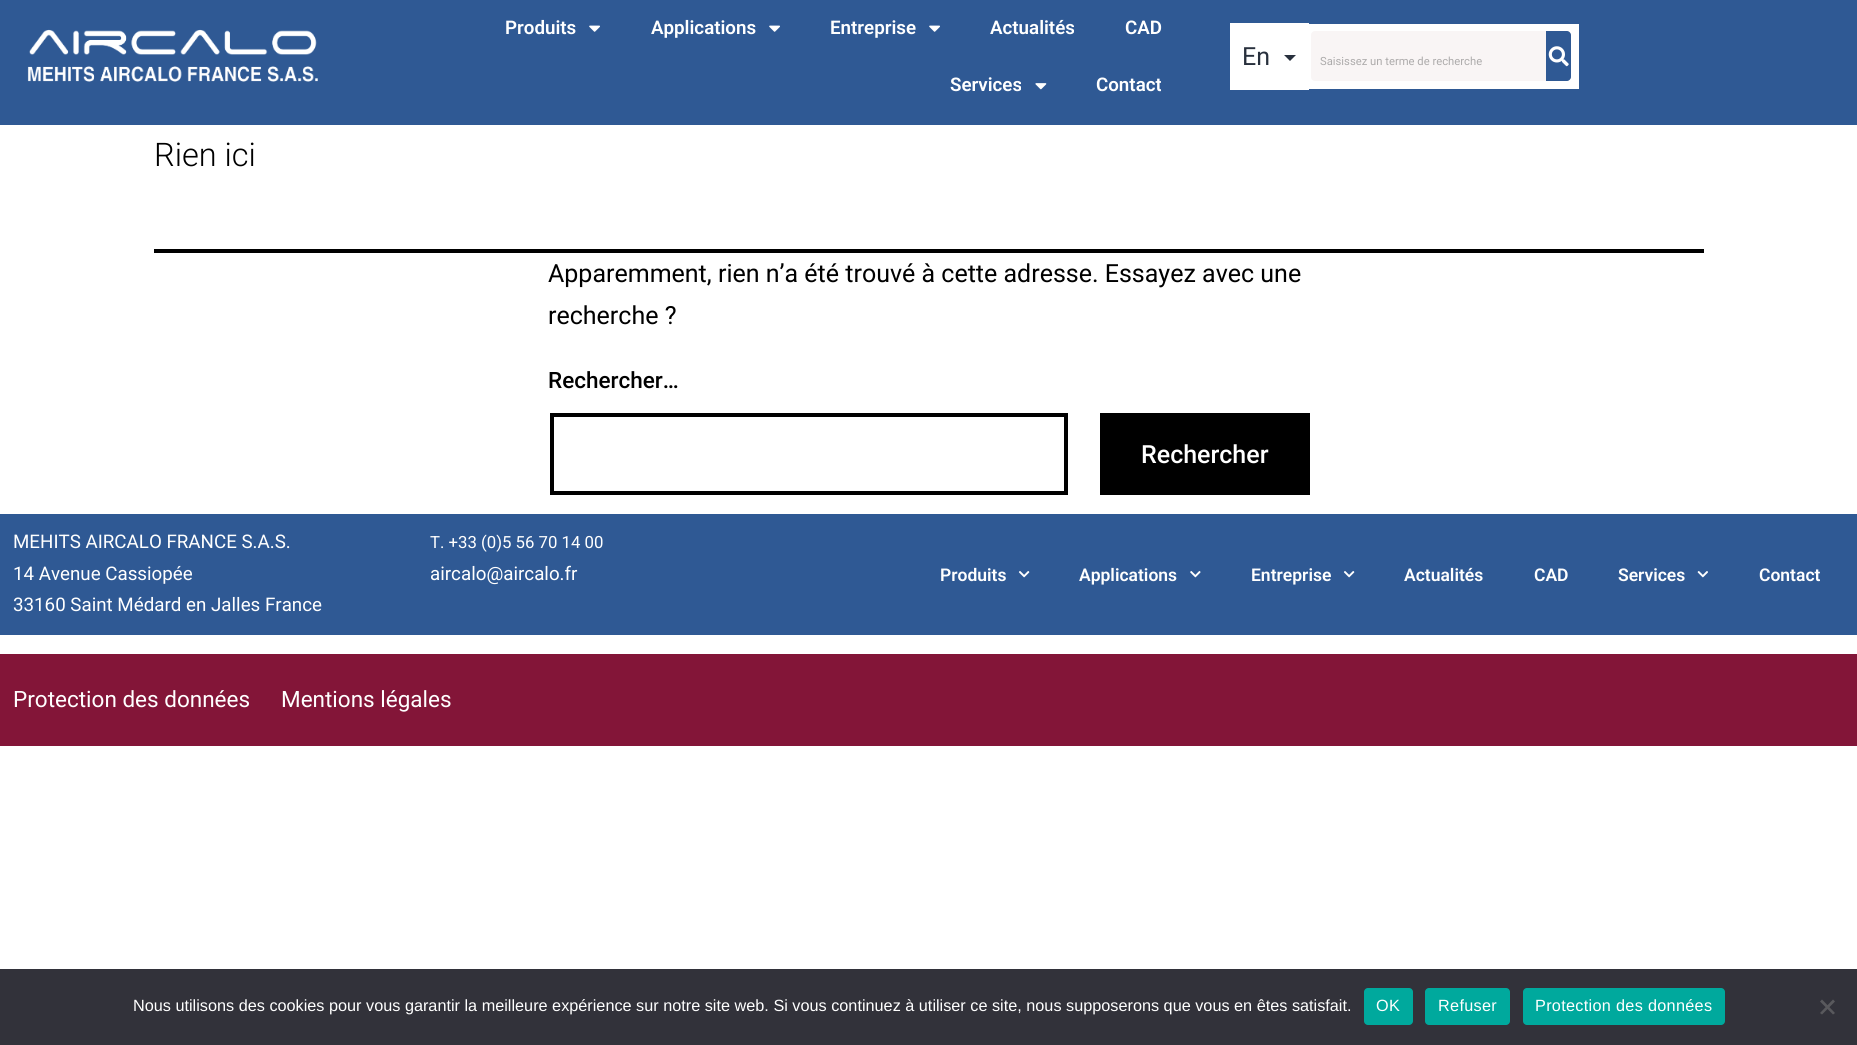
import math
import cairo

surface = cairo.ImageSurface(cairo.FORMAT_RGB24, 1857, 1045)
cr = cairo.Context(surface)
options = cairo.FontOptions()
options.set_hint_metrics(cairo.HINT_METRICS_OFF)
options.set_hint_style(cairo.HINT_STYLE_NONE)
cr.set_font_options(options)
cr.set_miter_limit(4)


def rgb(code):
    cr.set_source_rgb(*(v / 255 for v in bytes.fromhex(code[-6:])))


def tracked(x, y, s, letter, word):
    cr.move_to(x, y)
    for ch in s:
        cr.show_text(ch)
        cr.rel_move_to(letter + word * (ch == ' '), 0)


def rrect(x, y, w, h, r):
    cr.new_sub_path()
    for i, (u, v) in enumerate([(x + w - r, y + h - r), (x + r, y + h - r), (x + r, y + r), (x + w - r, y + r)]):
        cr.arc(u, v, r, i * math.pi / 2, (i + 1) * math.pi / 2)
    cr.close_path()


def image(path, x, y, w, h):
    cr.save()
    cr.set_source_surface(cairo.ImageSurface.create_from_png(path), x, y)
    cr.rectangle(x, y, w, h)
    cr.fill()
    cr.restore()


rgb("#ffffff")
cr.paint()
rgb("#2f5994")
cr.rectangle(0, 0, 1857, 125)
cr.fill()
image("img/1.png", 27, 29, 291, 53)
image("img/2.png", 589, 25, 11, 7)
image("img/2.png", 769, 25, 11, 7)
image("img/2.png", 929, 25, 11, 7)
image("img/3.png", 1035, 83, 12, 7)
rgb("#ffffff")
cr.rectangle(1230, 23, 79, 67)
cr.fill()
rgb("#28303d")
cr.new_path()
cr.move_to(1284, 55)
cr.line_to(1296, 55)
cr.line_to(1290, 61)
cr.close_path()
cr.fill()
rgb("#ffffff")
cr.rectangle(1309, 24, 270, 65)
cr.fill()
rgb("#f9f5f5")
rrect(1311, 31, 260, 50, 4)
cr.fill()
rgb("#2f5994")
cr.new_path()
cr.move_to(1546, 31)
cr.line_to(1567, 31)
cr.curve_to(1569, 31, 1571, 33, 1571, 35)
cr.line_to(1571, 77)
cr.curve_to(1571, 79, 1569, 81, 1567, 81)
cr.line_to(1546, 81)
cr.close_path()
cr.fill()
image("img/4.png", 1548, 46, 21, 21)
rgb("#000000")
cr.rectangle(154, 249, 1550, 4)
cr.fill()
cr.rectangle(552, 415, 514, 78)
cr.set_line_width(4)
cr.stroke()
cr.rectangle(1100, 413, 210, 82)
cr.fill()
rgb("#2f5994")
cr.rectangle(0, 514, 1857, 121)
cr.fill()
image("img/5.png", 1018, 571, 12, 7)
image("img/6.png", 1190, 571, 11, 7)
image("img/5.png", 1343, 571, 12, 7)
image("img/7.png", 1697, 571, 11, 7)
rgb("#831538")
cr.rectangle(0, 654, 1857, 92)
cr.fill()
rgb("#32323a")
cr.rectangle(0, 969, 1857, 76)
cr.fill()
rgb("#00a99d")
rrect(1364, 988, 49, 37, 4)
cr.fill()
rrect(1425, 988, 85, 37, 4)
cr.fill()
rrect(1523, 988, 202, 37, 4)
cr.fill()
rgb("#59595d")
cr.new_path()
cr.move_to(1833, 999.5)
cr.line_to(1835, 1001.5)
cr.line_to(1822, 1014.5)
cr.line_to(1820, 1013)
cr.close_path()
cr.fill()
cr.new_path()
cr.move_to(1820, 1001.5)
cr.line_to(1822, 999.5)
cr.line_to(1835, 1013)
cr.line_to(1833, 1014.5)
cr.close_path()
cr.fill()
cr.select_font_face("Roboto SemiBold")
cr.set_font_size(18.75)
rgb("#ffffff")
for x, y, s in [
    (505, 34, "Produits"),
    (651, 34, "Applications"),
    (830, 34, "Entreprise"),
    (990, 34, "Actualités"),
    (1125, 34, "CAD"),
    (950, 91, "Services"),
    (1096, 91, "Contact"),
]:
    cr.move_to(x, y)
    cr.show_text(s)
cr.select_font_face("Roboto")
cr.set_font_size(25)
rgb("#28303d")
cr.move_to(1242, 65)
cr.show_text("En")
cr.set_font_size(11.25)
rgb("#adabab")
cr.move_to(1320, 65)
cr.show_text("Saisissez un terme de recherche")
cr.select_font_face("Roboto Light")
cr.set_font_size(32.5)
rgb("#000000")
cr.move_to(154, 166)
cr.show_text("Rien ici")
cr.select_font_face("Roboto")
cr.set_font_size(25)
cr.move_to(548, 282)
cr.show_text("Apparemment, rien n’a été trouvé à cette adresse. Essayez avec une")
cr.move_to(548, 324)
cr.show_text("recherche ?")
cr.select_font_face("Roboto Medium")
cr.set_font_size(22.5)
cr.move_to(548, 388)
cr.show_text("Rechercher…")
cr.set_font_size(25)
rgb("#ffffff")
cr.move_to(1141, 463)
cr.show_text("Rechercher")
cr.select_font_face("Roboto")
cr.set_font_size(18.75)
for x, y, s in [
    (13, 548, "MEHITS AIRCALO FRANCE S.A.S."),
    (13, 580, "14 Avenue Cassiopée"),
    (13, 611, "33160 Saint Médard en Jalles France"),
]:
    cr.move_to(x, y)
    cr.show_text(s)
cr.set_font_size(16.75)
cr.move_to(430, 548)
cr.show_text("T. +33 (0)5 56 70 14 00")
cr.set_font_size(18.75)
cr.move_to(430, 580)
cr.show_text("aircalo@aircalo.fr")
cr.select_font_face("Roboto SemiBold")
cr.set_font_size(17.5)
for x, y, s in [
    (940, 581, "Produits"),
    (1079, 581, "Applications"),
    (1251, 581, "Entreprise"),
    (1404, 581, "Actualités"),
    (1534, 581, "CAD"),
    (1618, 581, "Services"),
    (1759, 581, "Contact"),
]:
    cr.move_to(x, y)
    cr.show_text(s)
cr.select_font_face("Roboto")
cr.set_font_size(22.5)
cr.move_to(13, 707)
cr.show_text("Protection des données")
cr.move_to(281, 707)
cr.show_text("Mentions légales")
cr.select_font_face("Liberation Sans")
cr.set_font_size(16.25)
cr.move_to(133, 1011)
cr.show_text("Nous utilisons des cookies pour vous garantir la meilleure expérience sur notre site web. Si vous continuez à utiliser ce site, nous supposerons que vous en êtes satisfait.")
for x, y, s in [
    (1376, 1011, "OK"),
    (1438, 1011, "Refuser"),
    (1535, 1011, "Protection des données"),
]:
    tracked(x, y, s, 0.3, 0)
surface.write_to_png("page.png")
